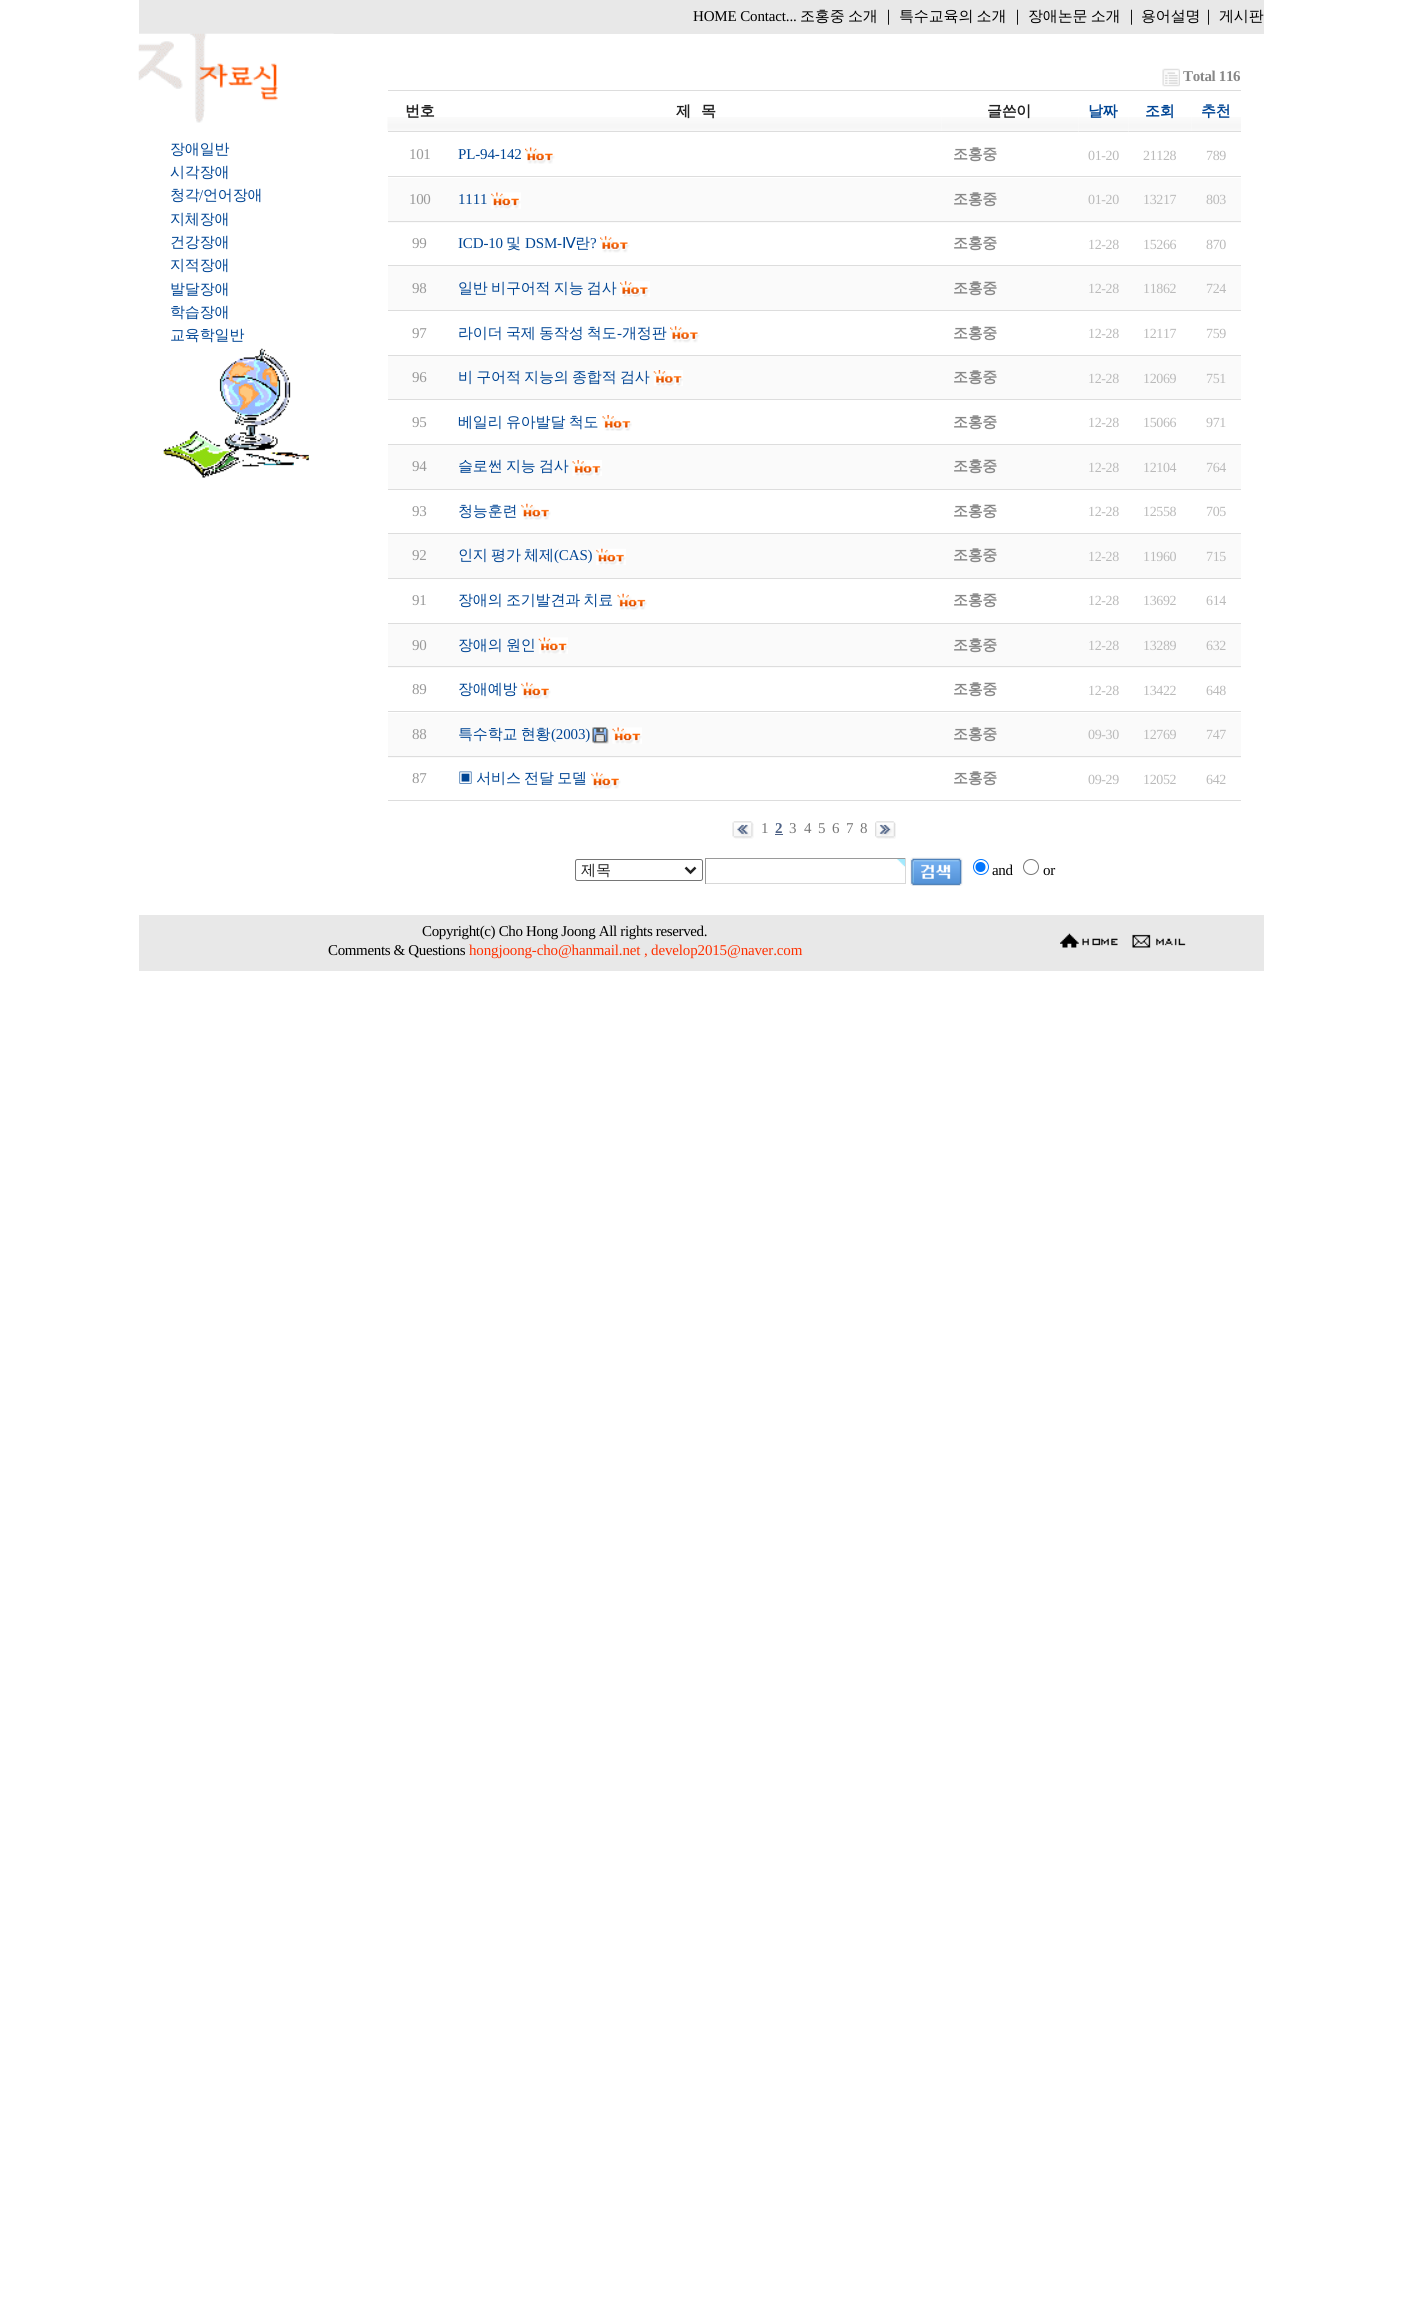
import math
import cairo

surface = cairo.ImageSurface(cairo.FORMAT_RGB24, 1401, 2298)
cr = cairo.Context(surface)
options = cairo.FontOptions()
options.set_hint_metrics(cairo.HINT_METRICS_OFF)
options.set_hint_style(cairo.HINT_STYLE_NONE)
cr.set_font_options(options)
cr.set_miter_limit(4)


def rgb(code):
    cr.set_source_rgb(*(v / 255 for v in bytes.fromhex(code[-6:])))


def tracked(x, y, s, letter, word):
    cr.move_to(x, y)
    for ch in s:
        cr.show_text(ch)
        cr.rel_move_to(letter + word * (ch == ' '), 0)


def rrect(x, y, w, h, r):
    cr.new_sub_path()
    for i, (u, v) in enumerate([(x + w - r, y + h - r), (x + r, y + h - r), (x + r, y + r), (x + w - r, y + r)]):
        cr.arc(u, v, r, i * math.pi / 2, (i + 1) * math.pi / 2)
    cr.close_path()


def image(path, x, y, w, h):
    cr.save()
    cr.set_source_surface(cairo.ImageSurface.create_from_png(path), x, y)
    cr.rectangle(x, y, w, h)
    cr.fill()
    cr.restore()


rgb("#ffffff")
cr.paint()
rgb("#e8e8e8")
cr.rectangle(139, 0, 1125, 34)
cr.fill()
image("img/1.png", 138, 33, 196, 90)
image("img/2.png", 163, 348, 146, 130)
image("img/3.png", 1162, 68, 18, 19)
image("img/4.png", 387, 117, 63, 14)
rgb("#dddddd")
cr.rectangle(388, 90, 853, 1)
cr.fill()
cr.rectangle(388, 131, 691, 1)
cr.fill()
image("img/5.png", 450, 117, 491, 14)
image("img/6.png", 941, 117, 138, 14)
image("img/7.png", 1078, 117, 51, 15)
cr.rectangle(1079, 131, 50, 1)
cr.fill()
image("img/8.png", 1128, 117, 63, 15)
cr.rectangle(1129, 131, 112, 1)
cr.fill()
image("img/9.png", 1191, 117, 50, 14)
cr.rectangle(388, 176, 62, 1)
cr.fill()
image("img/10.png", 525, 147, 30, 17)
for x, y, w, h, color in [
    (450, 176, 791, 1, "#dddddd"),
    (388, 178, 853, 45, "#fafafa"),
    (388, 221, 62, 1, "#dddddd"),
]:
    rgb(color)
    cr.rectangle(x, y, w, h)
    cr.fill()
image("img/11.png", 491, 192, 30, 17)
cr.rectangle(450, 221, 791, 1)
cr.fill()
cr.rectangle(388, 265, 62, 1)
cr.fill()
image("img/12.png", 600, 236, 30, 17)
for x, y, w, h, color in [
    (450, 265, 791, 1, "#dddddd"),
    (388, 266, 853, 44, "#fafafa"),
    (388, 310, 62, 1, "#dddddd"),
]:
    rgb(color)
    cr.rectangle(x, y, w, h)
    cr.fill()
image("img/13.png", 620, 281, 30, 16)
cr.rectangle(450, 310, 791, 1)
cr.fill()
cr.rectangle(388, 355, 62, 1)
cr.fill()
image("img/14.png", 670, 326, 30, 17)
for x, y, w, h, color in [
    (450, 355, 791, 1, "#dddddd"),
    (388, 356, 853, 43, "#fafafa"),
    (388, 399, 62, 1, "#dddddd"),
]:
    rgb(color)
    cr.rectangle(x, y, w, h)
    cr.fill()
image("img/15.png", 653, 370, 30, 16)
cr.rectangle(450, 399, 791, 1)
cr.fill()
cr.rectangle(388, 444, 62, 1)
cr.fill()
image("img/16.png", 602, 415, 30, 16)
for x, y, w, h, color in [
    (450, 444, 791, 1, "#dddddd"),
    (388, 445, 853, 44, "#fafafa"),
    (388, 489, 62, 1, "#dddddd"),
]:
    rgb(color)
    cr.rectangle(x, y, w, h)
    cr.fill()
image("img/17.png", 572, 460, 30, 16)
cr.rectangle(450, 489, 791, 1)
cr.fill()
cr.rectangle(388, 533, 62, 1)
cr.fill()
image("img/18.png", 521, 503, 30, 17)
for x, y, w, h, color in [
    (450, 533, 791, 1, "#dddddd"),
    (388, 534, 853, 44, "#fafafa"),
    (388, 578, 62, 1, "#dddddd"),
]:
    rgb(color)
    cr.rectangle(x, y, w, h)
    cr.fill()
image("img/19.png", 596, 548, 30, 17)
cr.rectangle(450, 578, 791, 1)
cr.fill()
cr.rectangle(388, 623, 62, 1)
cr.fill()
image("img/20.png", 617, 593, 30, 17)
for x, y, w, h, color in [
    (450, 623, 791, 1, "#dddddd"),
    (388, 624, 853, 44, "#fafafa"),
    (388, 666, 62, 1, "#dddddd"),
]:
    rgb(color)
    cr.rectangle(x, y, w, h)
    cr.fill()
image("img/21.png", 538, 637, 30, 17)
cr.rectangle(450, 666, 791, 1)
cr.fill()
cr.rectangle(388, 711, 62, 1)
cr.fill()
image("img/22.png", 521, 682, 30, 17)
for x, y, w, h, color in [
    (450, 711, 791, 1, "#dddddd"),
    (388, 713, 853, 45, "#fafafa"),
    (388, 756, 62, 1, "#dddddd"),
]:
    rgb(color)
    cr.rectangle(x, y, w, h)
    cr.fill()
image("img/23.png", 592, 727, 17, 17)
image("img/24.png", 612, 727, 30, 17)
cr.rectangle(450, 756, 791, 1)
cr.fill()
cr.rectangle(388, 800, 62, 1)
cr.fill()
image("img/25.png", 591, 772, 30, 17)
cr.rectangle(450, 800, 791, 1)
cr.fill()
image("img/26.png", 732, 821, 22, 18)
rgb("#4d6185")
cr.rectangle(775, 834, 8, 1)
cr.fill()
image("img/27.png", 875, 821, 21, 18)
rrect(575.5, 859.5, 127, 21, 2)
rgb("#767676")
cr.set_line_width(1)
cr.stroke()
cr.new_path()
cr.move_to(685.5, 867.5)
cr.line_to(690.5, 872.5)
cr.line_to(695.5, 867.5)
rgb("#222222")
cr.set_line_width(2.5)
cr.stroke()
image("img/28.png", 897, 859, 8, 8)
for x, y, w, h, color in [
    (705, 858, 201, 1, "#9a9a9a"),
    (905, 858, 1, 26, "#d8d8d8"),
    (705, 883, 201, 1, "#d8d8d8"),
    (705, 858, 1, 26, "#9a9a9a"),
]:
    rgb(color)
    cr.rectangle(x, y, w, h)
    cr.fill()
image("img/29.png", 910, 857, 53, 29)
cr.arc(981, 867, 7.5, 0, 2 * math.pi)
rgb("#0075ff")
cr.set_line_width(1)
cr.stroke()
cr.arc(980.5, 867, 5, 0, 2 * math.pi)
cr.fill()
cr.arc(1031, 867, 7.5, 0, 2 * math.pi)
rgb("#767676")
cr.stroke()
rgb("#e8e8e8")
cr.rectangle(139, 915, 1125, 56)
cr.fill()
image("img/30.png", 1060, 933, 58, 15)
image("img/31.png", 1132, 934, 54, 14)
cr.select_font_face("Liberation Serif")
cr.set_font_size(15)
rgb("#000000")
tracked(693, 21, "HOME Contact...", -0.15, 0)
cr.select_font_face("WenQuanYi Zen Hei Medium")
tracked(800, 21, "조홍중", -0.15, 0)
tracked(848, 21, "소개", -0.15, 0)
tracked(881, 21, "｜", -0.35, 0)
tracked(899, 21, "특수교육의 소개", -0.15, -1)
tracked(1010, 21, "｜", -0.35, 0)
tracked(1028, 21, "장애논문 소개", -0.15, -1)
tracked(1124, 21, "｜", -0.35, 0)
tracked(1141, 21, "용어설명", -0.15, 0)
tracked(1201, 21, "｜", -0.35, 0)
tracked(1219, 21, "게시판", -0.15, 0)
rgb("#004594")
for x, y, s in [
    (170, 154, "장애일반"),
    (170, 177, "시각장애"),
    (170, 200, "청각"),
]:
    tracked(x, y, s, -0.15, 0)
cr.select_font_face("Liberation Serif")
tracked(199, 200, "/", -0.15, 0)
cr.select_font_face("WenQuanYi Zen Hei Medium")
for x, y, s in [
    (203, 200, "언어장애"),
    (170, 224, "지체장애"),
    (170, 247, "건강장애"),
    (170, 270, "지적장애"),
    (170, 294, "발달장애"),
    (170, 317, "학습장애"),
    (170, 340, "교육학일반"),
]:
    tracked(x, y, s, -0.15, 0)
cr.select_font_face("Liberation Serif", cairo.FONT_SLANT_NORMAL, cairo.FONT_WEIGHT_BOLD)
rgb("#888888")
tracked(1183, 81, "Total 116", -0.35, 0)
cr.select_font_face("WenQuanYi Zen Hei", cairo.FONT_SLANT_NORMAL, cairo.FONT_WEIGHT_BOLD)
rgb("#222222")
for x, y, s in [
    (405, 116, "번호"),
    (676, 116, "제"),
    (701, 116, "목"),
    (987, 116, "글쓴이"),
]:
    tracked(x, y, s, -0.35, 0)
rgb("#004594")
for x, y, s in [
    (1088, 116, "날짜"),
    (1145, 116, "조회"),
    (1201, 116, "추천"),
]:
    tracked(x, y, s, -0.15, 0)
cr.select_font_face("Liberation Serif")
rgb("#999999")
tracked(409, 159, "101", -0.35, 0)
rgb("#004594")
tracked(458, 159, "PL-94-142", -0.15, 0)
cr.select_font_face("WenQuanYi Zen Hei", cairo.FONT_SLANT_NORMAL, cairo.FONT_WEIGHT_BOLD)
rgb("#888888")
tracked(953, 159, "조홍중", -0.35, 0)
cr.select_font_face("Liberation Serif")
cr.set_font_size(14)
rgb("#bababa")
for x, y, s in [
    (1088, 160, "01-20"),
    (1143, 160, "21128"),
    (1206, 160, "789"),
]:
    tracked(x, y, s, -0.35, 0)
cr.set_font_size(15)
rgb("#999999")
tracked(409, 204, "100", -0.35, 0)
rgb("#004594")
tracked(458, 204, "1111", -0.15, 0)
cr.select_font_face("WenQuanYi Zen Hei", cairo.FONT_SLANT_NORMAL, cairo.FONT_WEIGHT_BOLD)
rgb("#888888")
tracked(953, 204, "조홍중", -0.35, 0)
cr.select_font_face("Liberation Serif")
cr.set_font_size(14)
rgb("#bababa")
for x, y, s in [
    (1088, 204, "01-20"),
    (1143, 204, "13217"),
    (1206, 204, "803"),
]:
    tracked(x, y, s, -0.35, 0)
cr.set_font_size(15)
rgb("#999999")
tracked(412, 248, "99", -0.35, 0)
rgb("#004594")
tracked(458, 248, "ICD-10", -0.15, 0)
cr.select_font_face("WenQuanYi Zen Hei Medium")
tracked(506, 248, "및", -0.15, 0)
cr.select_font_face("Liberation Serif")
tracked(525, 248, "DSM-", -0.15, 0)
cr.select_font_face("DejaVu Sans")
tracked(562, 248, "Ⅳ", -0.15, 0)
cr.select_font_face("WenQuanYi Zen Hei Medium")
tracked(575, 248, "란", -0.15, 0)
cr.select_font_face("Liberation Serif")
tracked(590, 248, "?", -0.15, 0)
cr.select_font_face("WenQuanYi Zen Hei", cairo.FONT_SLANT_NORMAL, cairo.FONT_WEIGHT_BOLD)
rgb("#888888")
tracked(953, 248, "조홍중", -0.35, 0)
cr.select_font_face("Liberation Serif")
cr.set_font_size(14)
rgb("#bababa")
for x, y, s in [
    (1088, 249, "12-28"),
    (1143, 249, "15266"),
    (1206, 249, "870"),
]:
    tracked(x, y, s, -0.35, 0)
cr.set_font_size(15)
rgb("#999999")
tracked(412, 293, "98", -0.35, 0)
cr.select_font_face("WenQuanYi Zen Hei Medium")
rgb("#004594")
tracked(458, 293, "일반 비구어적 지능 검사", -0.15, -1)
cr.select_font_face("WenQuanYi Zen Hei", cairo.FONT_SLANT_NORMAL, cairo.FONT_WEIGHT_BOLD)
rgb("#888888")
tracked(953, 293, "조홍중", -0.35, 0)
cr.select_font_face("Liberation Serif")
cr.set_font_size(14)
rgb("#bababa")
for x, y, s in [
    (1088, 293, "12-28"),
    (1143, 293, "11862"),
    (1206, 293, "724"),
]:
    tracked(x, y, s, -0.35, 0)
cr.set_font_size(15)
rgb("#999999")
tracked(412, 338, "97", -0.35, 0)
cr.select_font_face("WenQuanYi Zen Hei Medium")
rgb("#004594")
tracked(458, 338, "라이더 국제 동작성 척도", -0.15, -1)
cr.select_font_face("Liberation Serif")
tracked(617, 338, "-", -0.15, 0)
cr.select_font_face("WenQuanYi Zen Hei Medium")
tracked(622, 338, "개정판", -0.15, 0)
cr.select_font_face("WenQuanYi Zen Hei", cairo.FONT_SLANT_NORMAL, cairo.FONT_WEIGHT_BOLD)
rgb("#888888")
tracked(953, 338, "조홍중", -0.35, 0)
cr.select_font_face("Liberation Serif")
cr.set_font_size(14)
rgb("#bababa")
for x, y, s in [
    (1088, 338, "12-28"),
    (1143, 338, "12117"),
    (1206, 338, "759"),
]:
    tracked(x, y, s, -0.35, 0)
cr.set_font_size(15)
rgb("#999999")
tracked(412, 382, "96", -0.35, 0)
cr.select_font_face("WenQuanYi Zen Hei Medium")
rgb("#004594")
tracked(458, 382, "비 구어적 지능의 종합적 검사", -0.15, -1)
cr.select_font_face("WenQuanYi Zen Hei", cairo.FONT_SLANT_NORMAL, cairo.FONT_WEIGHT_BOLD)
rgb("#888888")
tracked(953, 382, "조홍중", -0.35, 0)
cr.select_font_face("Liberation Serif")
cr.set_font_size(14)
rgb("#bababa")
for x, y, s in [
    (1088, 383, "12-28"),
    (1143, 383, "12069"),
    (1206, 383, "751"),
]:
    tracked(x, y, s, -0.35, 0)
cr.set_font_size(15)
rgb("#999999")
tracked(412, 427, "95", -0.35, 0)
cr.select_font_face("WenQuanYi Zen Hei Medium")
rgb("#004594")
tracked(458, 427, "베일리 유아발달 척도", -0.15, -1)
cr.select_font_face("WenQuanYi Zen Hei", cairo.FONT_SLANT_NORMAL, cairo.FONT_WEIGHT_BOLD)
rgb("#888888")
tracked(953, 427, "조홍중", -0.35, 0)
cr.select_font_face("Liberation Serif")
cr.set_font_size(14)
rgb("#bababa")
for x, y, s in [
    (1088, 427, "12-28"),
    (1143, 427, "15066"),
    (1206, 427, "971"),
]:
    tracked(x, y, s, -0.35, 0)
cr.set_font_size(15)
rgb("#999999")
tracked(412, 471, "94", -0.35, 0)
cr.select_font_face("WenQuanYi Zen Hei Medium")
rgb("#004594")
tracked(458, 471, "슬로썬 지능 검사", -0.15, -1)
cr.select_font_face("WenQuanYi Zen Hei", cairo.FONT_SLANT_NORMAL, cairo.FONT_WEIGHT_BOLD)
rgb("#888888")
tracked(953, 471, "조홍중", -0.35, 0)
cr.select_font_face("Liberation Serif")
cr.set_font_size(14)
rgb("#bababa")
for x, y, s in [
    (1088, 472, "12-28"),
    (1143, 472, "12104"),
    (1206, 472, "764"),
]:
    tracked(x, y, s, -0.35, 0)
cr.set_font_size(15)
rgb("#999999")
tracked(412, 516, "93", -0.35, 0)
cr.select_font_face("WenQuanYi Zen Hei Medium")
rgb("#004594")
tracked(458, 516, "청능훈련", -0.15, 0)
cr.select_font_face("WenQuanYi Zen Hei", cairo.FONT_SLANT_NORMAL, cairo.FONT_WEIGHT_BOLD)
rgb("#888888")
tracked(953, 516, "조홍중", -0.35, 0)
cr.select_font_face("Liberation Serif")
cr.set_font_size(14)
rgb("#bababa")
for x, y, s in [
    (1088, 516, "12-28"),
    (1143, 516, "12558"),
    (1206, 516, "705"),
]:
    tracked(x, y, s, -0.35, 0)
cr.set_font_size(15)
rgb("#999999")
tracked(412, 560, "92", -0.35, 0)
cr.select_font_face("WenQuanYi Zen Hei Medium")
rgb("#004594")
tracked(458, 560, "인지 평가 체제", -0.15, -1)
cr.select_font_face("Liberation Serif")
tracked(554, 560, "(CAS)", -0.15, 0)
cr.select_font_face("WenQuanYi Zen Hei", cairo.FONT_SLANT_NORMAL, cairo.FONT_WEIGHT_BOLD)
rgb("#888888")
tracked(953, 560, "조홍중", -0.35, 0)
cr.select_font_face("Liberation Serif")
cr.set_font_size(14)
rgb("#bababa")
for x, y, s in [
    (1088, 561, "12-28"),
    (1143, 561, "11960"),
    (1206, 561, "715"),
]:
    tracked(x, y, s, -0.35, 0)
cr.set_font_size(15)
rgb("#999999")
tracked(412, 605, "91", -0.35, 0)
cr.select_font_face("WenQuanYi Zen Hei Medium")
rgb("#004594")
tracked(458, 605, "장애의 조기발견과 치료", -0.15, -1)
cr.select_font_face("WenQuanYi Zen Hei", cairo.FONT_SLANT_NORMAL, cairo.FONT_WEIGHT_BOLD)
rgb("#888888")
tracked(953, 605, "조홍중", -0.35, 0)
cr.select_font_face("Liberation Serif")
cr.set_font_size(14)
rgb("#bababa")
for x, y, s in [
    (1088, 605, "12-28"),
    (1143, 605, "13692"),
    (1206, 605, "614"),
]:
    tracked(x, y, s, -0.35, 0)
cr.set_font_size(15)
rgb("#999999")
tracked(412, 650, "90", -0.35, 0)
cr.select_font_face("WenQuanYi Zen Hei Medium")
rgb("#004594")
tracked(458, 650, "장애의 원인", -0.15, -1)
cr.select_font_face("WenQuanYi Zen Hei", cairo.FONT_SLANT_NORMAL, cairo.FONT_WEIGHT_BOLD)
rgb("#888888")
tracked(953, 650, "조홍중", -0.35, 0)
cr.select_font_face("Liberation Serif")
cr.set_font_size(14)
rgb("#bababa")
for x, y, s in [
    (1088, 650, "12-28"),
    (1143, 650, "13289"),
    (1206, 650, "632"),
]:
    tracked(x, y, s, -0.35, 0)
cr.set_font_size(15)
rgb("#999999")
tracked(412, 694, "89", -0.35, 0)
cr.select_font_face("WenQuanYi Zen Hei Medium")
rgb("#004594")
tracked(458, 694, "장애예방", -0.15, 0)
cr.select_font_face("WenQuanYi Zen Hei", cairo.FONT_SLANT_NORMAL, cairo.FONT_WEIGHT_BOLD)
rgb("#888888")
tracked(953, 694, "조홍중", -0.35, 0)
cr.select_font_face("Liberation Serif")
cr.set_font_size(14)
rgb("#bababa")
for x, y, s in [
    (1088, 695, "12-28"),
    (1143, 695, "13422"),
    (1206, 695, "648"),
]:
    tracked(x, y, s, -0.35, 0)
cr.set_font_size(15)
rgb("#999999")
tracked(412, 739, "88", -0.35, 0)
cr.select_font_face("WenQuanYi Zen Hei Medium")
rgb("#004594")
tracked(458, 739, "특수학교 현황", -0.15, -1)
cr.select_font_face("Liberation Serif")
tracked(551, 739, "(2003)", -0.15, 0)
cr.select_font_face("WenQuanYi Zen Hei", cairo.FONT_SLANT_NORMAL, cairo.FONT_WEIGHT_BOLD)
rgb("#888888")
tracked(953, 739, "조홍중", -0.35, 0)
cr.select_font_face("Liberation Serif")
cr.set_font_size(14)
rgb("#bababa")
for x, y, s in [
    (1088, 739, "09-30"),
    (1143, 739, "12769"),
    (1206, 739, "747"),
]:
    tracked(x, y, s, -0.35, 0)
cr.set_font_size(15)
rgb("#999999")
tracked(412, 783, "87", -0.35, 0)
cr.select_font_face("WenQuanYi Zen Hei Medium")
rgb("#004594")
tracked(458, 783, "▣ 서비스 전달 모델", -0.15, -1)
cr.select_font_face("WenQuanYi Zen Hei", cairo.FONT_SLANT_NORMAL, cairo.FONT_WEIGHT_BOLD)
rgb("#888888")
tracked(953, 783, "조홍중", -0.35, 0)
cr.select_font_face("Liberation Serif")
cr.set_font_size(14)
rgb("#bababa")
for x, y, s in [
    (1088, 784, "09-29"),
    (1143, 784, "12052"),
    (1206, 784, "642"),
]:
    tracked(x, y, s, -0.35, 0)
cr.set_font_size(15)
rgb("#777777")
tracked(761, 833, "1", -0.15, 0)
cr.select_font_face("Liberation Serif", cairo.FONT_SLANT_NORMAL, cairo.FONT_WEIGHT_BOLD)
rgb("#4d6185")
tracked(775, 833, "2", -0.35, 0)
cr.select_font_face("Liberation Serif")
rgb("#777777")
for x, y, s in [
    (789, 833, "3"),
    (804, 833, "4"),
    (818, 833, "5"),
    (832, 833, "6"),
    (846, 833, "7"),
    (860, 833, "8"),
]:
    tracked(x, y, s, -0.15, 0)
cr.select_font_face("WenQuanYi Zen Hei Medium")
rgb("#222222")
cr.move_to(581, 875)
cr.show_text("제목")
cr.select_font_face("Liberation Serif")
rgb("#000000")
for x, y, s in [
    (992, 875, "and"),
    (1043, 875, "or"),
    (422, 936, "Copyright(c) Cho Hong Joong All rights reserved."),
    (328, 955, "Comments & Questions"),
]:
    tracked(x, y, s, -0.35, 0)
rgb("#ff3000")
tracked(469, 955, "hongjoong-cho@hanmail.net , develop2015@naver.com", -0.15, 0)
surface.write_to_png("page.png")
